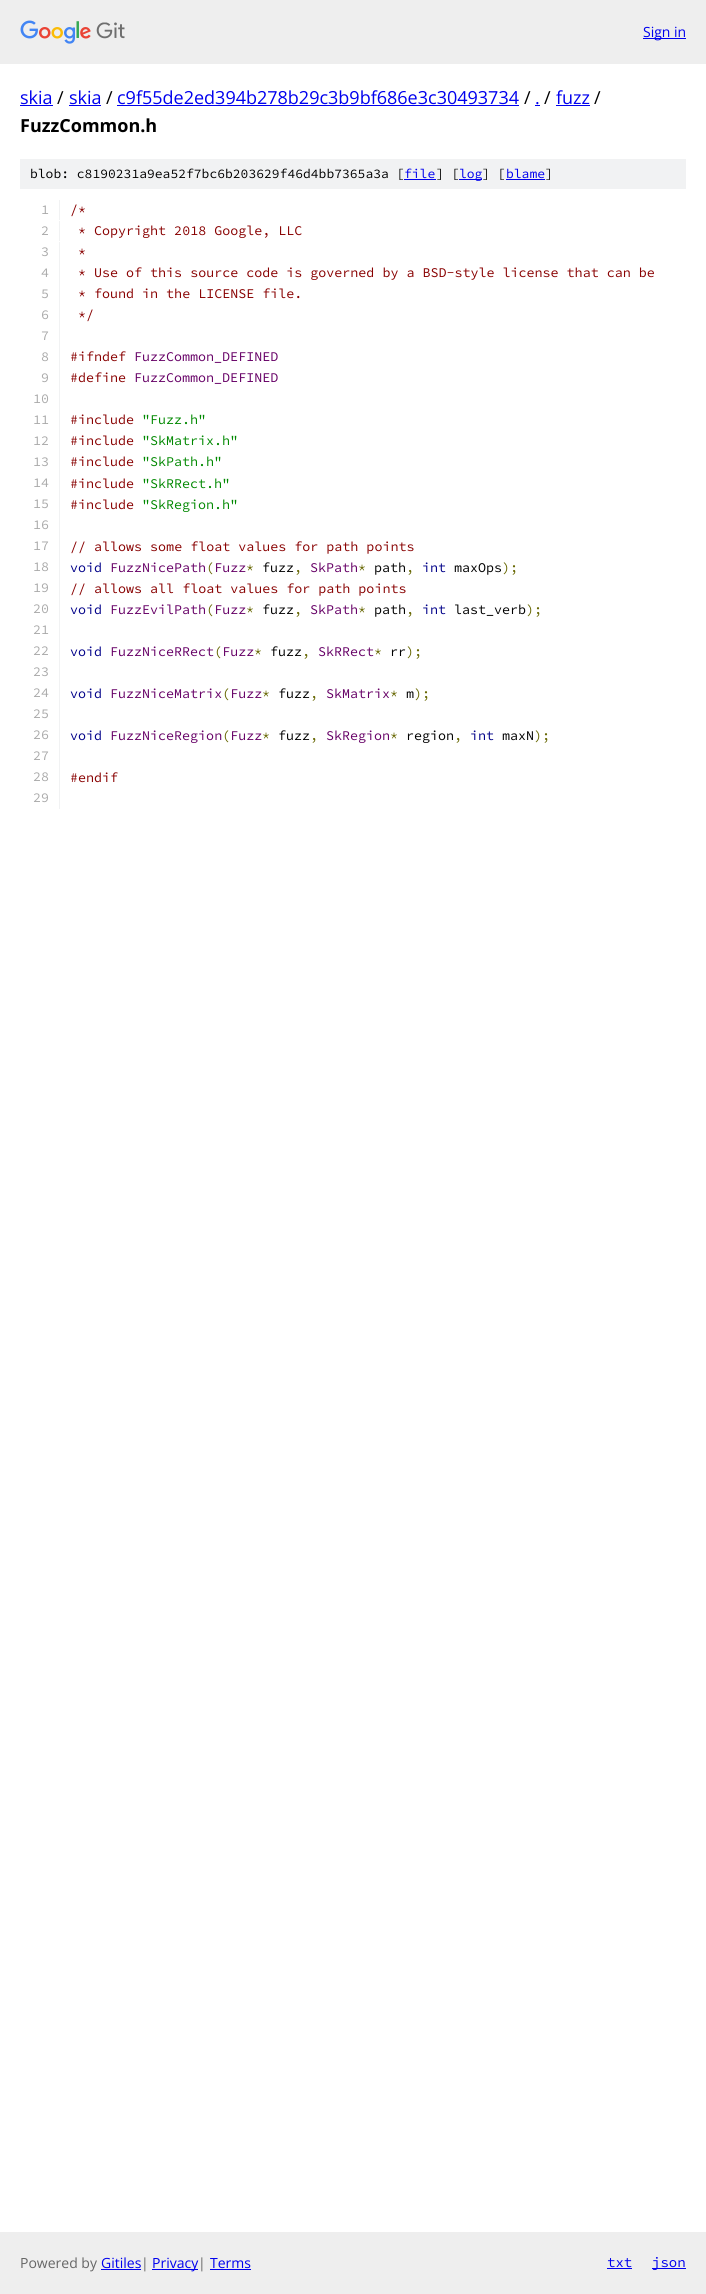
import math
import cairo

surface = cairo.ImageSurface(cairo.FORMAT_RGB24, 706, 2294)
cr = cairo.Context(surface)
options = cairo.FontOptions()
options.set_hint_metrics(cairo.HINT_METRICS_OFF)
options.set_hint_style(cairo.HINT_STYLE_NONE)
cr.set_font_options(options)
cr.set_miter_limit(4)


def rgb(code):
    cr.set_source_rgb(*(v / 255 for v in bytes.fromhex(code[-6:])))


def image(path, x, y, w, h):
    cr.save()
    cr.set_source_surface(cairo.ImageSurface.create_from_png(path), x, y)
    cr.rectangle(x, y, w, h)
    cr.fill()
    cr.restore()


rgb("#ffffff")
cr.paint()
rgb("#eeeeee")
cr.rectangle(0, 0, 706, 64)
cr.fill()
image("img/1.png", 20, 20, 105, 24)
for x, y, w, h, color in [
    (643, 38, 43, 1, "#0000ee"),
    (20, 105, 33, 1, "#0000ee"),
    (69, 105, 32, 1, "#0000ee"),
    (117, 105, 402, 1, "#0000ee"),
    (535, 105, 5, 1, "#0000ee"),
    (556, 105, 34, 1, "#0000ee"),
    (20, 159, 666, 30, "#f1f2f3"),
    (404, 179, 32, 1, "#0000ee"),
    (459, 179, 23, 1, "#0000ee"),
    (506, 179, 39, 1, "#0000ee"),
    (59, 200, 1, 20, "#f1f2f3"),
    (59, 221, 1, 20, "#f1f2f3"),
    (59, 242, 1, 567, "#f1f2f3"),
    (0, 2232, 706, 62, "#eeeeee"),
    (101, 2269, 40, 1, "#0000ee"),
    (152, 2269, 46, 1, "#0000ee"),
    (210, 2269, 41, 1, "#0000ee"),
    (607, 2268, 25, 1, "#0000ee"),
    (652, 2268, 34, 1, "#0000ee"),
]:
    rgb(color)
    cr.rectangle(x, y, w, h)
    cr.fill()
cr.select_font_face("Open Sans")
cr.set_font_size(14)
cr.move_to(643, 37)
cr.show_text("Sign in")
cr.set_font_size(18)
cr.move_to(20, 104)
cr.show_text("skia")
rgb("#000000")
cr.move_to(57, 104)
cr.show_text("/")
rgb("#0000ee")
cr.move_to(69, 104)
cr.show_text("skia")
rgb("#000000")
cr.move_to(106, 104)
cr.show_text("/")
rgb("#0000ee")
cr.move_to(117, 104)
cr.show_text("c9f55de2ed394b278b29c3b9bf686e3c30493734")
rgb("#000000")
cr.move_to(524, 104)
cr.show_text("/")
rgb("#0000ee")
cr.move_to(535, 104)
cr.show_text(".")
rgb("#000000")
cr.move_to(544, 104)
cr.show_text("/")
rgb("#0000ee")
cr.move_to(556, 104)
cr.show_text("fuzz")
rgb("#000000")
cr.move_to(594, 104)
cr.show_text("/")
cr.select_font_face("Open Sans", cairo.FONT_SLANT_NORMAL, cairo.FONT_WEIGHT_BOLD)
cr.move_to(20, 132)
cr.show_text("FuzzCommon.h")
cr.select_font_face("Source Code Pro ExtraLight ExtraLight")
cr.set_font_size(13)
cr.move_to(30, 178)
cr.show_text("blob: c8190231a9ea52f7bc6b203629f46d4bb7365a3a [")
rgb("#0000ee")
cr.move_to(404, 178)
cr.show_text("file")
rgb("#000000")
cr.move_to(436, 178)
cr.show_text("] [")
rgb("#0000ee")
cr.move_to(459, 178)
cr.show_text("log")
rgb("#000000")
cr.move_to(482, 178)
cr.show_text("] [")
rgb("#0000ee")
cr.move_to(506, 178)
cr.show_text("blame")
rgb("#000000")
cr.move_to(545, 178)
cr.show_text("]")
cr.set_font_size(13.35)
rgb("#aaaaaa")
cr.move_to(41, 214)
cr.show_text("1")
rgb("#880000")
cr.move_to(70, 214)
cr.show_text("/*")
rgb("#aaaaaa")
cr.move_to(41, 235)
cr.show_text("2")
rgb("#880000")
cr.move_to(78, 235)
cr.show_text("* Copyright 2018 Google, LLC")
rgb("#aaaaaa")
cr.move_to(41, 256)
cr.show_text("3")
rgb("#880000")
cr.move_to(78, 256)
cr.show_text("*")
rgb("#aaaaaa")
cr.move_to(41, 277)
cr.show_text("4")
rgb("#880000")
cr.move_to(78, 277)
cr.show_text("* Use of this source code is governed by a BSD-style license that can be")
rgb("#aaaaaa")
cr.move_to(41, 298)
cr.show_text("5")
rgb("#880000")
cr.move_to(78, 298)
cr.show_text("* found in the LICENSE file.")
rgb("#aaaaaa")
cr.move_to(41, 319)
cr.show_text("6")
rgb("#880000")
cr.move_to(78, 319)
cr.show_text("*/")
rgb("#aaaaaa")
cr.move_to(41, 340)
cr.show_text("7")
cr.move_to(41, 361)
cr.show_text("8")
rgb("#880000")
cr.move_to(70, 361)
cr.show_text("#ifndef")
rgb("#660066")
cr.move_to(134, 361)
cr.show_text("FuzzCommon_DEFINED")
rgb("#aaaaaa")
cr.move_to(41, 382)
cr.show_text("9")
rgb("#880000")
cr.move_to(70, 382)
cr.show_text("#define")
rgb("#660066")
cr.move_to(134, 382)
cr.show_text("FuzzCommon_DEFINED")
rgb("#aaaaaa")
cr.move_to(33, 403)
cr.show_text("10")
cr.move_to(33, 424)
cr.show_text("11")
rgb("#880000")
cr.move_to(70, 424)
cr.show_text("#include")
rgb("#008800")
cr.move_to(142, 424)
cr.show_text("\"Fuzz.h\"")
rgb("#aaaaaa")
cr.move_to(33, 445)
cr.show_text("12")
rgb("#880000")
cr.move_to(70, 445)
cr.show_text("#include")
rgb("#008800")
cr.move_to(142, 445)
cr.show_text("\"SkMatrix.h\"")
rgb("#aaaaaa")
cr.move_to(33, 466)
cr.show_text("13")
rgb("#880000")
cr.move_to(70, 466)
cr.show_text("#include")
rgb("#008800")
cr.move_to(142, 466)
cr.show_text("\"SkPath.h\"")
rgb("#aaaaaa")
cr.move_to(33, 487)
cr.show_text("14")
rgb("#880000")
cr.move_to(70, 488)
cr.show_text("#include")
rgb("#008800")
cr.move_to(142, 488)
cr.show_text("\"SkRRect.h\"")
rgb("#aaaaaa")
cr.move_to(33, 508)
cr.show_text("15")
rgb("#880000")
cr.move_to(70, 509)
cr.show_text("#include")
rgb("#008800")
cr.move_to(142, 509)
cr.show_text("\"SkRegion.h\"")
rgb("#aaaaaa")
cr.move_to(33, 529)
cr.show_text("16")
cr.move_to(33, 550)
cr.show_text("17")
rgb("#880000")
cr.move_to(70, 551)
cr.show_text("// allows some float values for path points")
rgb("#aaaaaa")
cr.move_to(33, 571)
cr.show_text("18")
rgb("#000088")
cr.move_to(70, 572)
cr.show_text("void")
rgb("#660066")
cr.move_to(110, 572)
cr.show_text("FuzzNicePath Fuzz")
rgb("#666600")
cr.move_to(206, 572)
cr.show_text("(")
cr.move_to(246, 572)
cr.show_text("*")
rgb("#000000")
cr.move_to(262, 572)
cr.show_text("fuzz")
rgb("#660066")
cr.move_to(310, 572)
cr.show_text("SkPath")
rgb("#666600")
cr.move_to(358, 572)
cr.show_text("*")
rgb("#000000")
cr.move_to(374, 572)
cr.show_text("path")
rgb("#000088")
cr.move_to(422, 572)
cr.show_text("int")
rgb("#000000")
cr.move_to(454, 572)
cr.show_text("maxOps")
rgb("#666600")
for x, y, s in [
    (502, 572, ");"),
    (294, 572, ","),
    (406, 572, ","),
]:
    cr.move_to(x, y)
    cr.show_text(s)
rgb("#aaaaaa")
cr.move_to(33, 592)
cr.show_text("19")
rgb("#880000")
cr.move_to(70, 593)
cr.show_text("// allows all float values for path points")
rgb("#aaaaaa")
cr.move_to(33, 613)
cr.show_text("20")
rgb("#000088")
cr.move_to(70, 614)
cr.show_text("void")
rgb("#660066")
cr.move_to(110, 614)
cr.show_text("FuzzEvilPath Fuzz")
rgb("#666600")
cr.move_to(206, 614)
cr.show_text("(")
cr.move_to(246, 614)
cr.show_text("*")
rgb("#000000")
cr.move_to(262, 614)
cr.show_text("fuzz")
rgb("#660066")
cr.move_to(310, 614)
cr.show_text("SkPath")
rgb("#666600")
cr.move_to(358, 614)
cr.show_text("*")
rgb("#000000")
cr.move_to(374, 614)
cr.show_text("path")
rgb("#000088")
cr.move_to(422, 614)
cr.show_text("int")
rgb("#000000")
cr.move_to(454, 614)
cr.show_text("last_verb")
rgb("#666600")
for x, y, s in [
    (526, 614, ");"),
    (294, 614, ","),
    (406, 614, ","),
]:
    cr.move_to(x, y)
    cr.show_text(s)
rgb("#aaaaaa")
cr.move_to(33, 634)
cr.show_text("21")
cr.move_to(33, 655)
cr.show_text("22")
rgb("#000088")
cr.move_to(70, 656)
cr.show_text("void")
rgb("#660066")
cr.move_to(110, 656)
cr.show_text("FuzzNiceRRect Fuzz")
rgb("#666600")
cr.move_to(214, 656)
cr.show_text("(")
cr.move_to(254, 656)
cr.show_text("*")
rgb("#000000")
cr.move_to(270, 656)
cr.show_text("fuzz")
rgb("#666600")
cr.move_to(302, 656)
cr.show_text(",")
rgb("#660066")
cr.move_to(318, 656)
cr.show_text("SkRRect")
rgb("#666600")
cr.move_to(374, 656)
cr.show_text("*")
rgb("#000000")
cr.move_to(390, 656)
cr.show_text("rr")
rgb("#666600")
cr.move_to(406, 656)
cr.show_text(");")
rgb("#aaaaaa")
cr.move_to(33, 676)
cr.show_text("23")
cr.move_to(33, 697)
cr.show_text("24")
rgb("#000088")
cr.move_to(70, 698)
cr.show_text("void")
rgb("#660066")
cr.move_to(110, 698)
cr.show_text("FuzzNiceMatrix Fuzz")
rgb("#666600")
cr.move_to(222, 698)
cr.show_text("(")
cr.move_to(262, 698)
cr.show_text("*")
rgb("#000000")
cr.move_to(278, 698)
cr.show_text("fuzz")
rgb("#666600")
cr.move_to(310, 698)
cr.show_text(",")
rgb("#660066")
cr.move_to(326, 698)
cr.show_text("SkMatrix")
rgb("#666600")
cr.move_to(390, 698)
cr.show_text("*")
rgb("#000000")
cr.move_to(406, 698)
cr.show_text("m")
rgb("#666600")
cr.move_to(414, 698)
cr.show_text(");")
rgb("#aaaaaa")
cr.move_to(33, 718)
cr.show_text("25")
cr.move_to(33, 739)
cr.show_text("26")
rgb("#000088")
cr.move_to(70, 740)
cr.show_text("void")
rgb("#660066")
cr.move_to(110, 740)
cr.show_text("FuzzNiceRegion Fuzz")
rgb("#666600")
cr.move_to(222, 740)
cr.show_text("(")
cr.move_to(262, 740)
cr.show_text("*")
rgb("#000000")
cr.move_to(278, 740)
cr.show_text("fuzz")
rgb("#660066")
cr.move_to(326, 740)
cr.show_text("SkRegion")
rgb("#666600")
cr.move_to(390, 740)
cr.show_text("*")
rgb("#000000")
cr.move_to(406, 740)
cr.show_text("region")
rgb("#000088")
cr.move_to(470, 740)
cr.show_text("int")
rgb("#000000")
cr.move_to(502, 740)
cr.show_text("maxN")
rgb("#666600")
for x, y, s in [
    (534, 740, ");"),
    (310, 740, ","),
    (454, 740, ","),
]:
    cr.move_to(x, y)
    cr.show_text(s)
rgb("#aaaaaa")
cr.move_to(33, 760)
cr.show_text("27")
cr.move_to(33, 781)
cr.show_text("28")
rgb("#880000")
cr.move_to(70, 782)
cr.show_text("#endif")
rgb("#aaaaaa")
cr.move_to(33, 802)
cr.show_text("29")
cr.select_font_face("Open Sans")
cr.set_font_size(14)
rgb("#666666")
cr.move_to(20, 2268)
cr.show_text("Powered by")
rgb("#0000ee")
cr.move_to(101, 2268)
cr.show_text("Gitiles")
rgb("#666666")
cr.move_to(141, 2268)
cr.show_text("|")
rgb("#0000ee")
cr.move_to(152, 2268)
cr.show_text("Privacy")
rgb("#666666")
cr.move_to(198, 2268)
cr.show_text("|")
rgb("#0000ee")
cr.move_to(210, 2268)
cr.show_text("Terms")
cr.select_font_face("Source Code Pro ExtraLight ExtraLight")
cr.move_to(607, 2267)
cr.show_text("txt")
cr.move_to(652, 2267)
cr.show_text("json")
surface.write_to_png("page.png")
